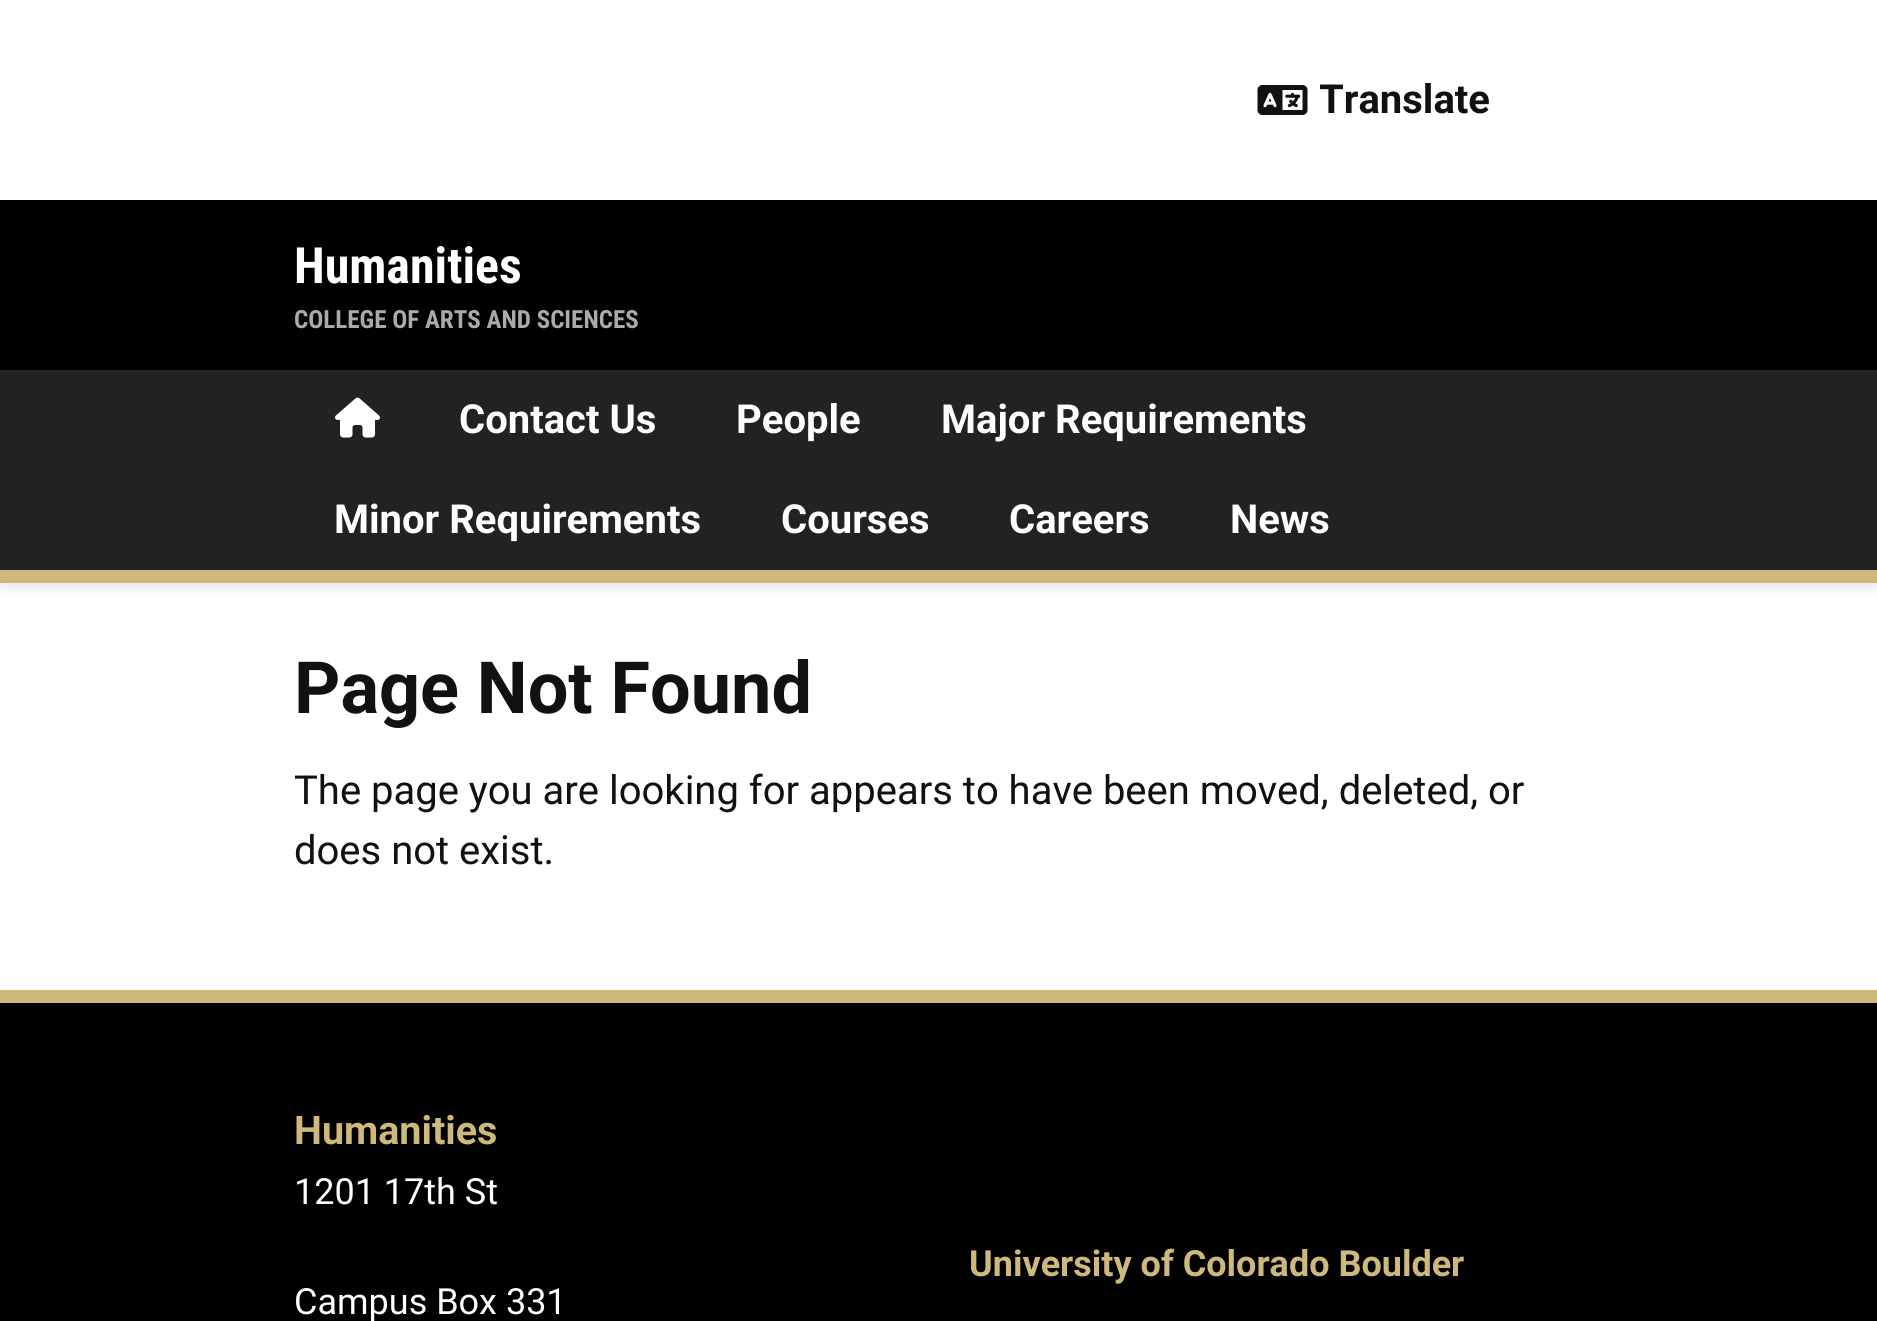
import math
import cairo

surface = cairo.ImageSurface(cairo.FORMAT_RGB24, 1877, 1321)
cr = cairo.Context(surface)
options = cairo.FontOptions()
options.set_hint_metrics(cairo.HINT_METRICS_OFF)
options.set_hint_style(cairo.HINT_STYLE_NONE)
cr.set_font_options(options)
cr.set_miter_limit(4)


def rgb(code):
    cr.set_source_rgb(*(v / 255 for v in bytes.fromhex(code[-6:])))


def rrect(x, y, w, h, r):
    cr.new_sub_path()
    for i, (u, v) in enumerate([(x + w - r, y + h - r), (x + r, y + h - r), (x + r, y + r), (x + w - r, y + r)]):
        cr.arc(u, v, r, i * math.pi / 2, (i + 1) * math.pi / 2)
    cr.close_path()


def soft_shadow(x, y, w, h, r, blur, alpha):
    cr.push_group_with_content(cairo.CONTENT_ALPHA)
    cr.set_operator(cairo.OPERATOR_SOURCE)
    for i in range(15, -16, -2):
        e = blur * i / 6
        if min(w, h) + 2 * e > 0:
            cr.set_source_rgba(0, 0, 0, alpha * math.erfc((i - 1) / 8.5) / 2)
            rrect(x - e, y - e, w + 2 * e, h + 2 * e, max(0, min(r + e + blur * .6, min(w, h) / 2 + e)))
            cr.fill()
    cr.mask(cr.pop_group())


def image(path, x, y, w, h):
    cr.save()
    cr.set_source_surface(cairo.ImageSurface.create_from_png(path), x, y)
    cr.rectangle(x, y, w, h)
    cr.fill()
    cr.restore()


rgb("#ffffff")
cr.paint()
image("img/1.png", 1257, 85, 51, 30)
rgb("#000000")
soft_shadow(0, 375, 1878, 213, 0, 6, 0.1)
for x, y, w, h, color in [
    (0, 200, 1877, 170, "#000000"),
    (0, 370, 1877, 200, "#222222"),
    (0, 570, 1877, 13, "#cfb87c"),
]:
    rgb(color)
    cr.rectangle(x, y, w, h)
    cr.fill()
image("img/2.png", 335, 397, 45, 41)
rgb("#000000")
cr.rectangle(0, 1003, 1877, 318)
cr.fill()
rgb("#cfb87c")
cr.rectangle(0, 990, 1877, 13)
cr.fill()
cr.save()
cr.rectangle(1320, 70, 175, 60)
cr.clip()
cr.select_font_face("Roboto", cairo.FONT_SLANT_NORMAL, cairo.FONT_WEIGHT_BOLD)
cr.set_font_size(40)
rgb("#111111")
cr.move_to(1319, 113)
cr.show_text("Translate")
cr.restore()
cr.select_font_face("Roboto Condensed", cairo.FONT_SLANT_NORMAL, cairo.FONT_WEIGHT_BOLD)
cr.set_font_size(50)
rgb("#ffffff")
cr.move_to(294, 283)
cr.show_text("Humanities")
cr.set_font_size(25)
rgb("#aaaaaa")
cr.move_to(294, 328)
cr.show_text("COLLEGE OF ARTS AND SCIENCES")
cr.select_font_face("Roboto", cairo.FONT_SLANT_NORMAL, cairo.FONT_WEIGHT_BOLD)
cr.set_font_size(40)
rgb("#ffffff")
for x, y, s in [
    (459, 433, "Contact Us"),
    (736, 433, "People"),
    (941, 433, "Major Requirements"),
    (334, 533, "Minor Requirements"),
    (781, 533, "Courses"),
    (1009, 533, "Careers"),
    (1230, 533, "News"),
]:
    cr.move_to(x, y)
    cr.show_text(s)
cr.set_font_size(72)
rgb("#111111")
cr.move_to(294, 713)
cr.show_text("Page Not Found")
cr.select_font_face("Roboto")
cr.set_font_size(40)
cr.move_to(294, 804)
cr.show_text("The page you are looking for appears to have been moved, deleted, or")
cr.move_to(294, 864)
cr.show_text("does not exist.")
cr.select_font_face("Roboto", cairo.FONT_SLANT_NORMAL, cairo.FONT_WEIGHT_BOLD)
cr.set_font_size(39.5)
rgb("#cfb87c")
cr.move_to(294, 1144)
cr.show_text("Humanities")
cr.select_font_face("Roboto")
cr.set_font_size(36)
rgb("#ffffff")
cr.move_to(294, 1204)
cr.show_text("1201 17th St")
cr.move_to(294, 1314)
cr.show_text("Campus Box 331")
cr.select_font_face("Roboto", cairo.FONT_SLANT_NORMAL, cairo.FONT_WEIGHT_BOLD)
rgb("#cfb87c")
cr.move_to(969, 1276)
cr.show_text("University of Colorado Boulder")
surface.write_to_png("page.png")
